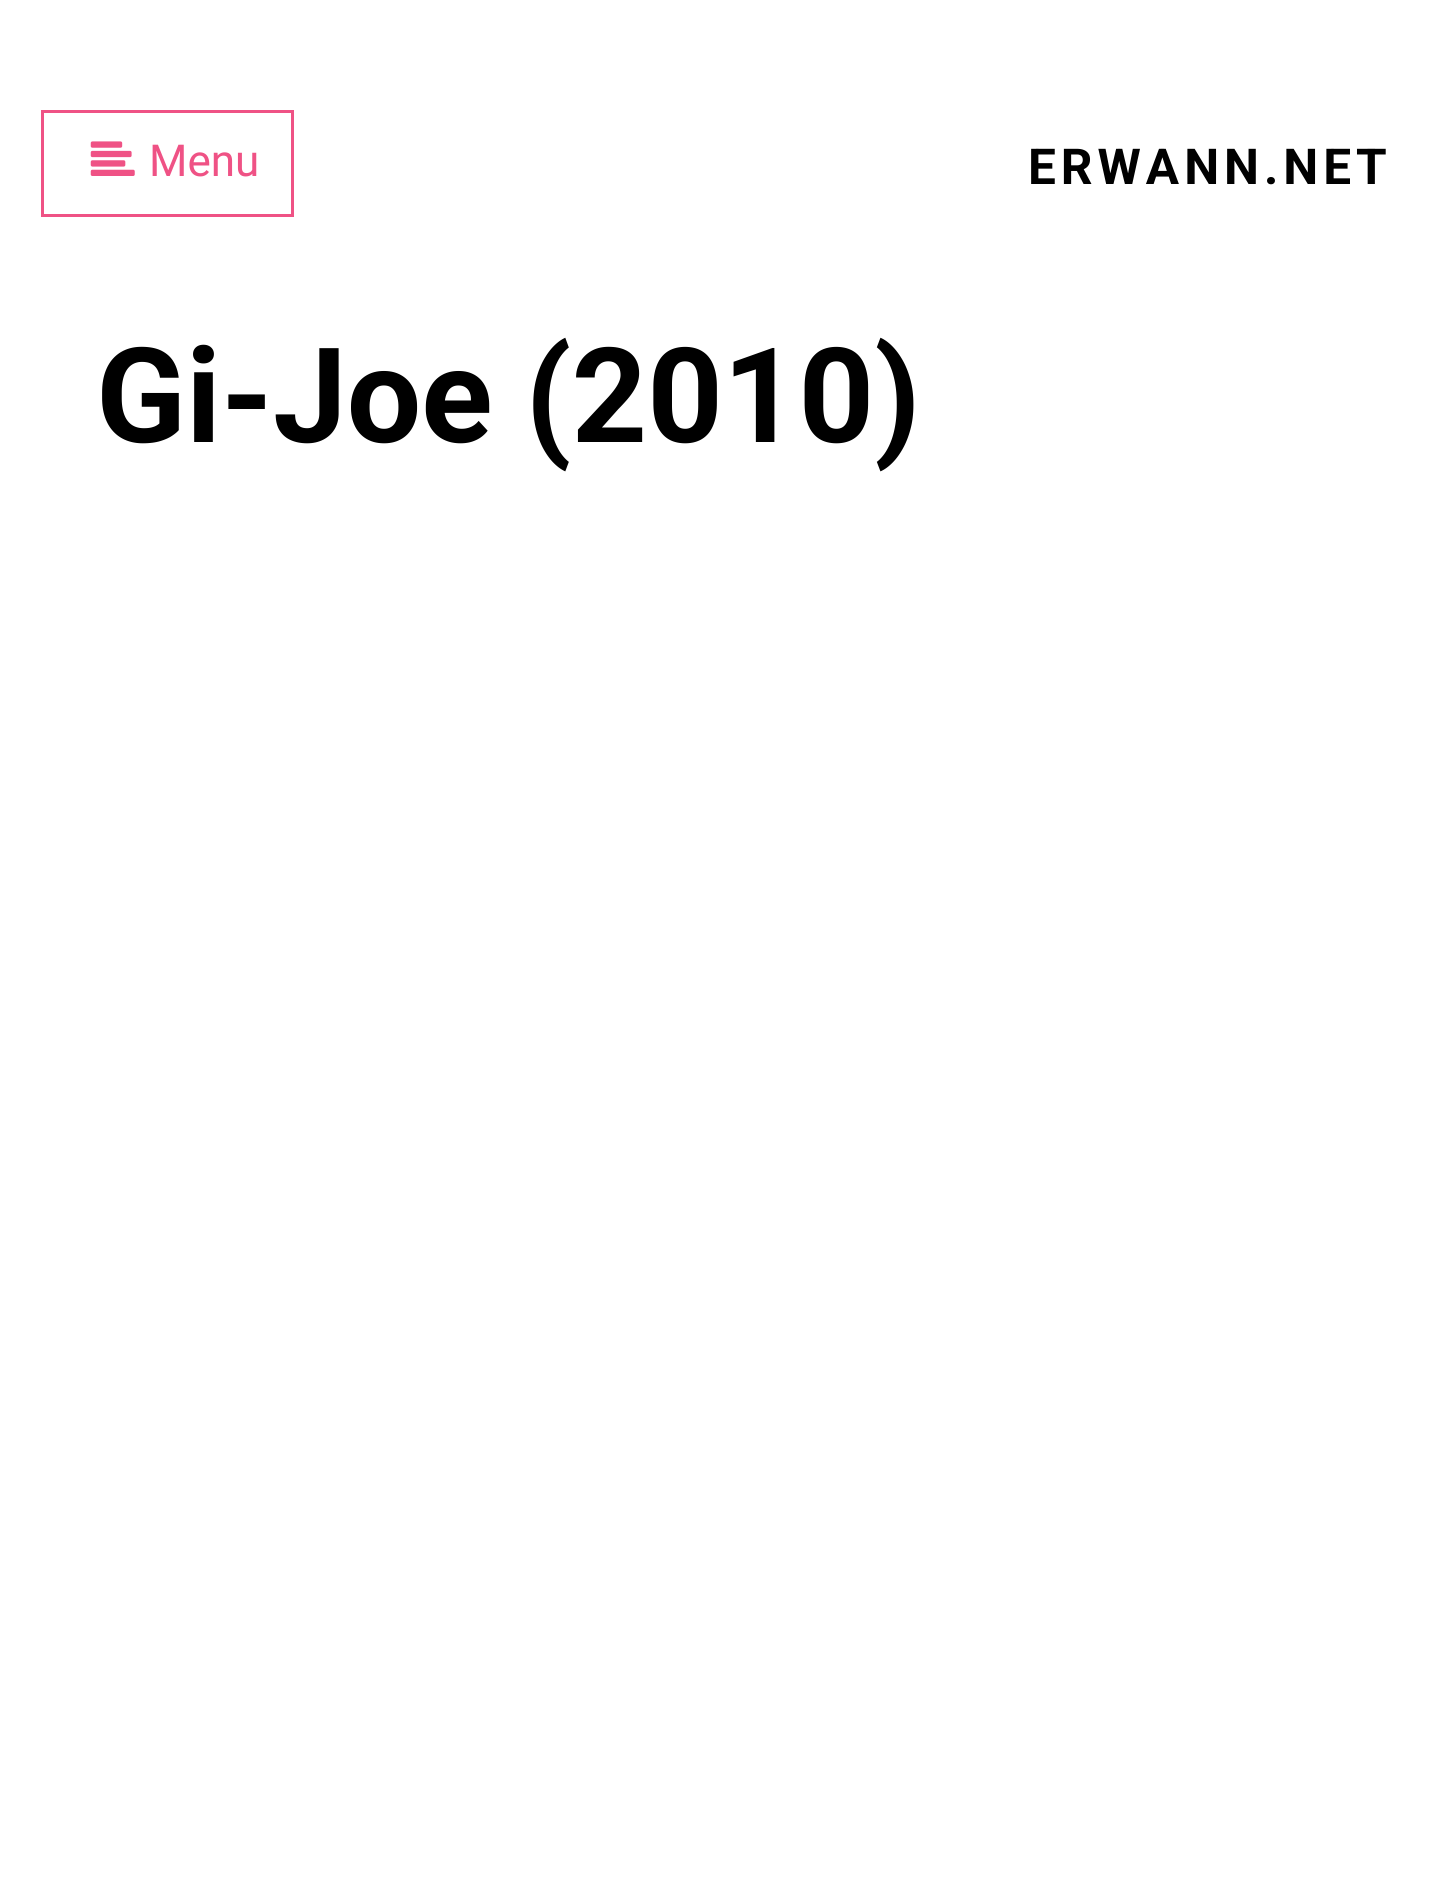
import math
import cairo

surface = cairo.ImageSurface(cairo.FORMAT_RGB24, 1431, 1894)
cr = cairo.Context(surface)
options = cairo.FontOptions()
options.set_hint_metrics(cairo.HINT_METRICS_OFF)
options.set_hint_style(cairo.HINT_STYLE_NONE)
cr.set_font_options(options)
cr.set_miter_limit(4)


def rgb(code):
    cr.set_source_rgb(*(v / 255 for v in bytes.fromhex(code[-6:])))


def tracked(x, y, s, letter, word):
    cr.move_to(x, y)
    for ch in s:
        cr.show_text(ch)
        cr.rel_move_to(letter + word * (ch == ' '), 0)


def image(path, x, y, w, h):
    cr.save()
    cr.set_source_surface(cairo.ImageSurface.create_from_png(path), x, y)
    cr.rectangle(x, y, w, h)
    cr.fill()
    cr.restore()


rgb("#ffffff")
cr.paint()
cr.rectangle(42.5, 111.5, 250, 104)
rgb("#ef5285")
cr.set_line_width(3)
cr.stroke()
image("img/1.png", 90, 141, 45, 35)
cr.select_font_face("Roboto")
cr.set_font_size(44)
cr.move_to(149, 176)
cr.show_text("Menu")
cr.select_font_face("Roboto", cairo.FONT_SLANT_NORMAL, cairo.FONT_WEIGHT_BOLD)
cr.set_font_size(49.5)
rgb("#000000")
tracked(1028, 184, "ERWANN.NET", 5, 0)
cr.set_font_size(132)
cr.move_to(96, 442)
cr.show_text("Gi-Joe (2010)")
surface.write_to_png("page.png")
